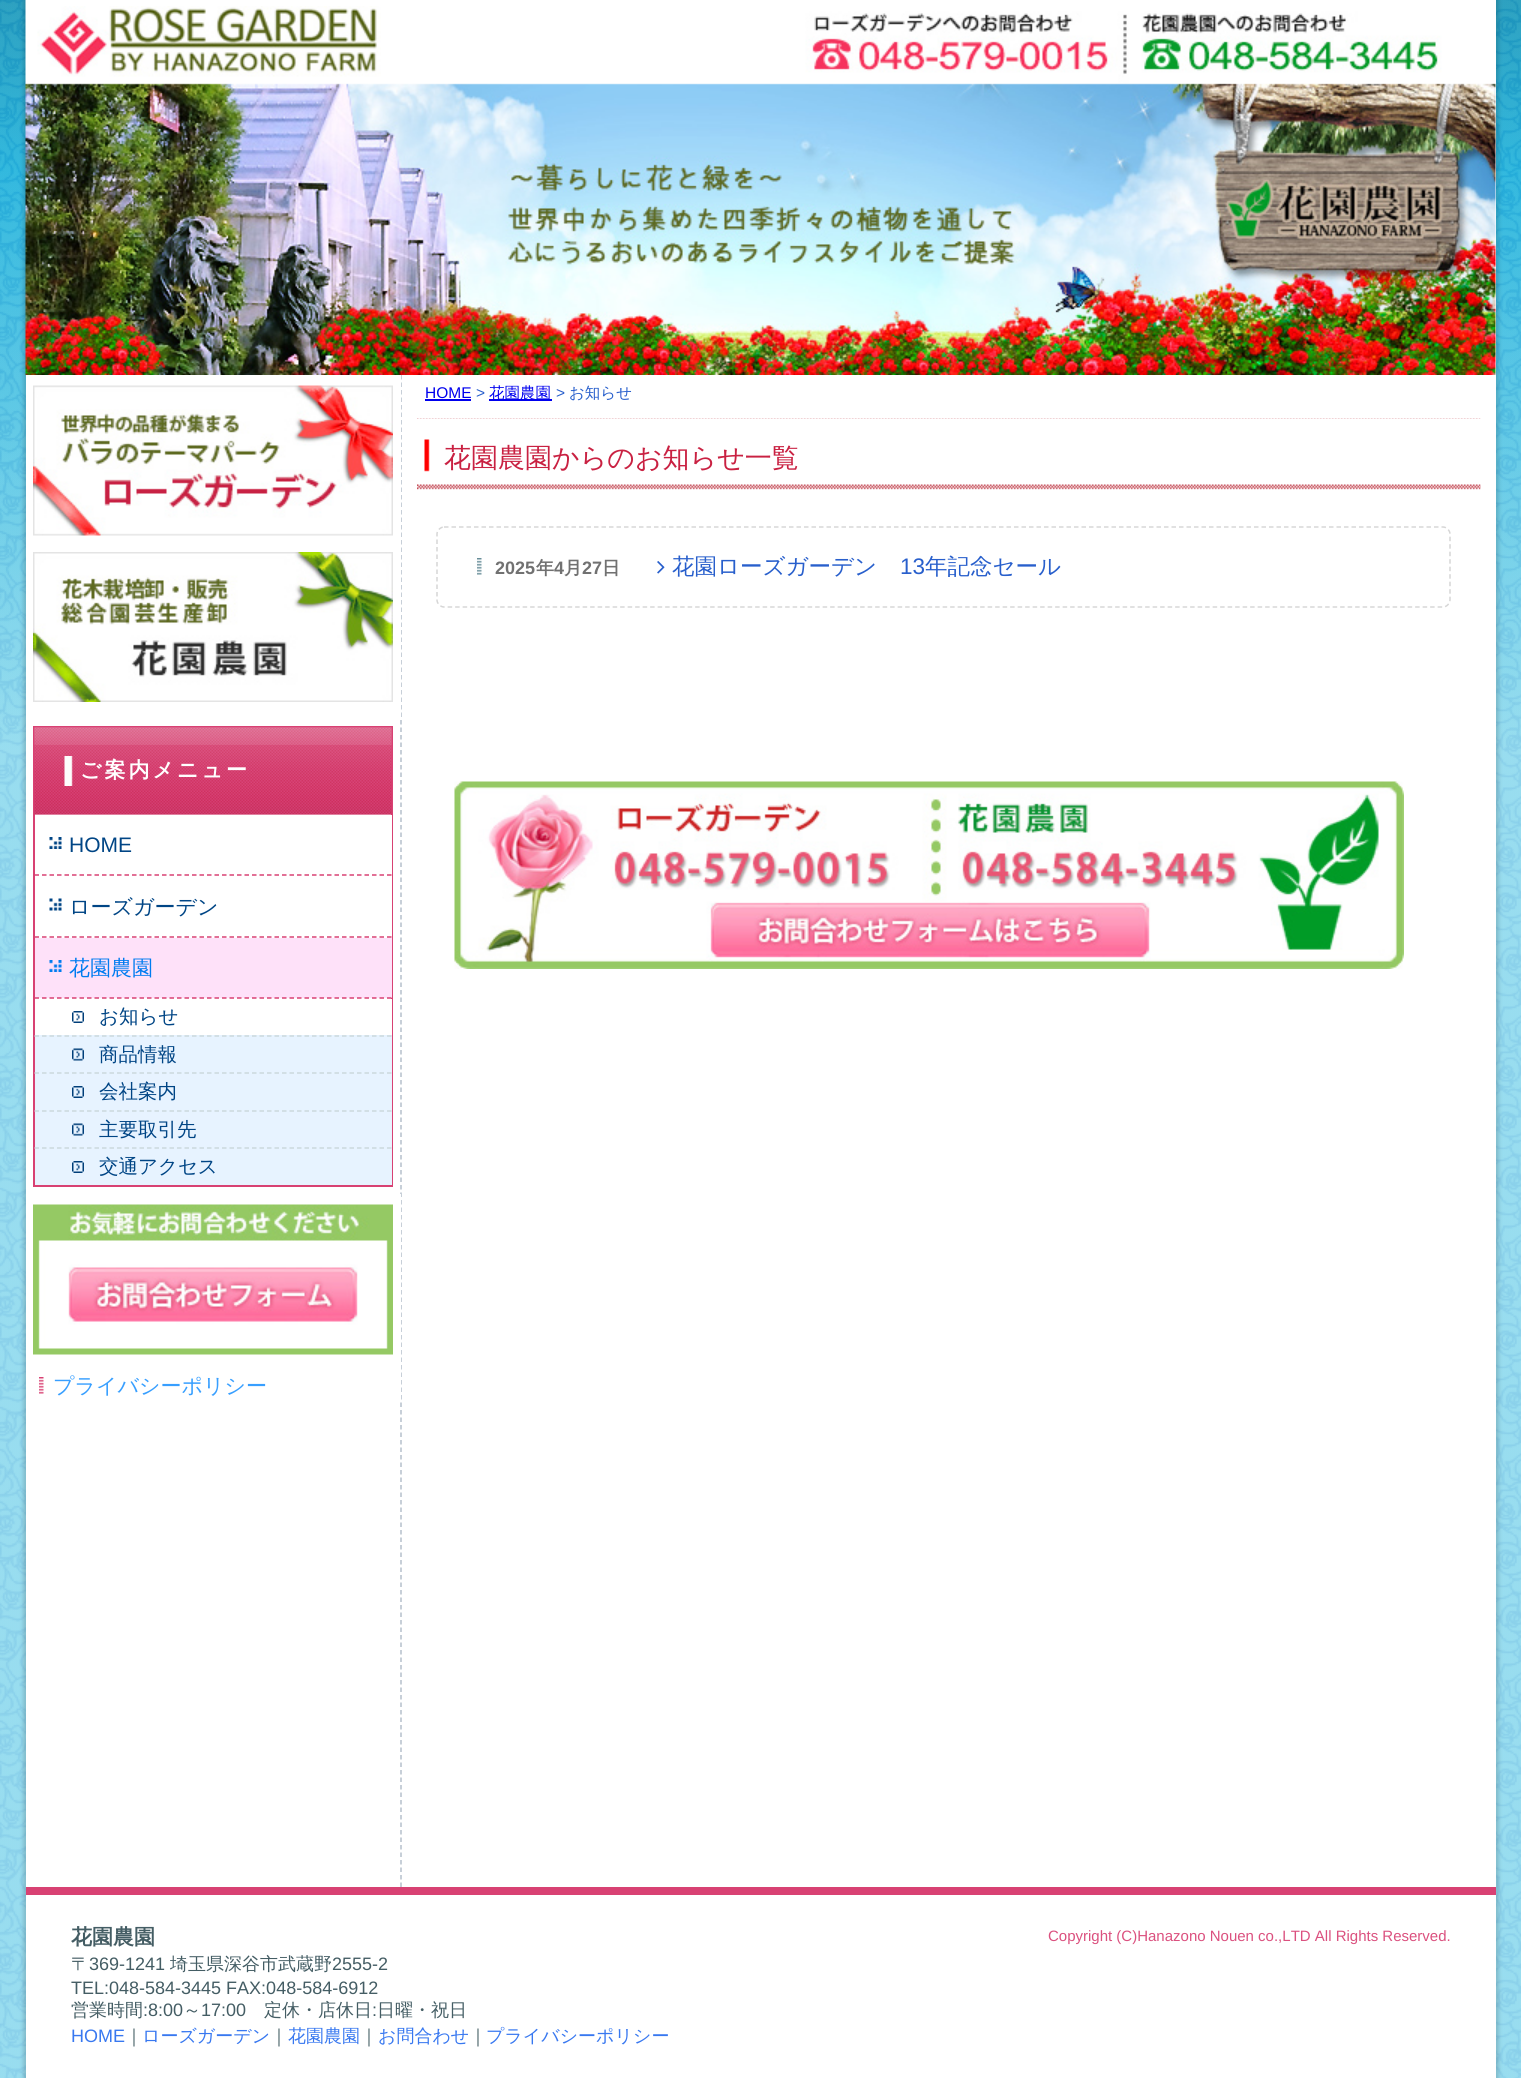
import math
import cairo

surface = cairo.ImageSurface(cairo.FORMAT_RGB24, 1521, 2078)
cr = cairo.Context(surface)
options = cairo.FontOptions()
options.set_hint_metrics(cairo.HINT_METRICS_OFF)
options.set_hint_style(cairo.HINT_STYLE_NONE)
cr.set_font_options(options)
cr.set_miter_limit(4)


def rgb(code):
    cr.set_source_rgb(*(v / 255 for v in bytes.fromhex(code[-6:])))


def tracked(x, y, s, letter, word):
    cr.move_to(x, y)
    for ch in s:
        cr.show_text(ch)
        cr.rel_move_to(letter + word * (ch == ' '), 0)


def rrect(x, y, w, h, r):
    cr.new_sub_path()
    for i, (u, v) in enumerate([(x + w - r, y + h - r), (x + r, y + h - r), (x + r, y + r), (x + w - r, y + r)]):
        cr.arc(u, v, r, i * math.pi / 2, (i + 1) * math.pi / 2)
    cr.close_path()


def soft_shadow(x, y, w, h, r, blur, alpha):
    cr.push_group_with_content(cairo.CONTENT_ALPHA)
    cr.set_operator(cairo.OPERATOR_SOURCE)
    for i in range(15, -16, -2):
        e = blur * i / 6
        if min(w, h) + 2 * e > 0:
            cr.set_source_rgba(0, 0, 0, alpha * math.erfc((i - 1) / 8.5) / 2)
            rrect(x - e, y - e, w + 2 * e, h + 2 * e, max(0, min(r + e + blur * .6, min(w, h) / 2 + e)))
            cr.fill()
    cr.mask(cr.pop_group())


def image(path, x, y, w, h):
    cr.save()
    cr.set_source_surface(cairo.ImageSurface.create_from_png(path), x, y)
    cr.rectangle(x, y, w, h)
    cr.fill()
    cr.restore()


rgb("#ffffff")
cr.paint()
image("img/1.png", 0, 0, 1521, 2078)
rgb("#000000")
soft_shadow(23, -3, 1476, 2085, 0, 2, 0.15)
rgb("#ffffff")
cr.rectangle(26, 0, 1470, 2078)
cr.fill()
image("img/2.png", 25, 0, 1471, 375)
image("img/3.png", 37, 6, 344, 71)
rgb("#0000ee")
cr.rectangle(425, 399, 46, 2)
cr.fill()
cr.rectangle(489, 399, 63, 2)
cr.fill()
image("img/4.png", 417, 418, 1064, 72)
cr.new_path()
cr.move_to(444, 527)
cr.line_to(1443, 527)
cr.curve_to(1446.5, 527, 1450, 530.5, 1450, 534)
cr.line_to(1450, 600)
cr.curve_to(1450, 603.5, 1446.5, 607, 1443, 607)
cr.line_to(444, 607)
cr.curve_to(440.5, 607, 437, 603.5, 437, 600)
cr.line_to(437, 534)
cr.curve_to(437, 530.5, 440.5, 527, 444, 527)
cr.close_path()
rgb("#d6d6d6")
cr.set_line_width(1.5)
cr.set_dash([4.5, 3])
cr.stroke()
image("img/5.png", 477, 558, 5, 17)
image("img/6.png", 657, 561, 8, 13)
image("img/7.png", 454, 781, 950, 188)
cr.new_path()
cr.move_to(401, 375)
cr.line_to(401, 1887)
rgb("#b4bfcb")
cr.stroke()
rgb("#ffffff")
cr.rectangle(400, 375, 1, 342)
cr.fill()
image("img/8.png", 33, 385, 360, 151)
image("img/9.png", 33, 552, 360, 150)
cr.rectangle(34, 727, 358, 459)
rgb("#d84173")
cr.set_line_width(2)
cr.set_dash([])
cr.stroke()
image("img/10.png", 34, 727, 358, 88)
image("img/11.png", 64, 756, 9, 30)
image("img/12.png", 49, 837, 13, 12)
rgb("#ffffff")
cr.rectangle(391, 815, 1, 61)
cr.fill()
cr.new_path()
cr.move_to(34.5, 875)
cr.line_to(391.5, 875)
rgb("#d84173")
cr.set_line_width(1.5)
cr.set_dash([4.5, 3])
cr.stroke()
image("img/13.png", 49, 898, 13, 13)
rgb("#ffffff")
cr.rectangle(391, 876, 1, 62)
cr.fill()
cr.new_path()
cr.move_to(34.5, 937)
cr.line_to(391.5, 937)
rgb("#d84173")
cr.stroke()
rgb("#fee1f9")
cr.rectangle(35, 938, 357, 60)
cr.fill()
image("img/14.png", 49, 960, 13, 12)
cr.new_path()
cr.move_to(34.5, 998)
cr.line_to(391.5, 998)
rgb("#d84173")
cr.stroke()
rgb("#ffffff")
cr.rectangle(391, 999, 1, 36)
cr.fill()
image("img/15.png", 72, 1011, 12, 12)
rgb("#e7f3ff")
cr.rectangle(35, 1035, 357, 150)
cr.fill()
cr.new_path()
cr.move_to(34.5, 1036)
cr.line_to(391.5, 1036)
rgb("#cbd8dc")
cr.stroke()
image("img/16.png", 72, 1048, 12, 13)
cr.new_path()
cr.move_to(34.5, 1073)
cr.line_to(391.5, 1073)
cr.stroke()
image("img/17.png", 72, 1086, 12, 12)
cr.new_path()
cr.move_to(34.5, 1111)
cr.line_to(391.5, 1111)
cr.stroke()
image("img/16.png", 72, 1123, 12, 13)
cr.new_path()
cr.move_to(34.5, 1148)
cr.line_to(391.5, 1148)
cr.stroke()
image("img/17.png", 72, 1161, 12, 12)
rgb("#ffffff")
cr.rectangle(400, 1194, 1, 206)
cr.fill()
image("img/18.png", 33, 1204, 360, 151)
image("img/19.png", 39, 1377, 5, 17)
rgb("#d84173")
cr.rectangle(26, 1887, 1470, 8)
cr.fill()
cr.select_font_face("Liberation Sans")
cr.set_font_size(15.5)
rgb("#0000ee")
cr.move_to(425, 398)
cr.show_text("HOME")
rgb("#285fcc")
cr.move_to(476, 398)
cr.show_text(">")
cr.select_font_face("WenQuanYi Zen Hei Medium")
rgb("#0000ee")
cr.move_to(489, 398)
cr.show_text("花園農園")
cr.select_font_face("Liberation Sans")
rgb("#285fcc")
cr.move_to(556, 398)
cr.show_text(">")
cr.select_font_face("WenQuanYi Zen Hei Medium")
cr.move_to(569, 398)
cr.show_text("お知らせ")
cr.set_font_size(27)
rgb("#c92142")
cr.move_to(444, 467)
cr.show_text("花園農園からのお知らせ一覧")
cr.select_font_face("Liberation Sans", cairo.FONT_SLANT_NORMAL, cairo.FONT_WEIGHT_BOLD)
cr.set_font_size(18)
rgb("#717171")
cr.move_to(495, 574)
cr.show_text("2025")
cr.select_font_face("WenQuanYi Zen Hei", cairo.FONT_SLANT_NORMAL, cairo.FONT_WEIGHT_BOLD)
cr.move_to(536, 574)
cr.show_text("年")
cr.select_font_face("Liberation Sans", cairo.FONT_SLANT_NORMAL, cairo.FONT_WEIGHT_BOLD)
cr.move_to(554, 574)
cr.show_text("4")
cr.select_font_face("WenQuanYi Zen Hei", cairo.FONT_SLANT_NORMAL, cairo.FONT_WEIGHT_BOLD)
cr.move_to(564, 574)
cr.show_text("月")
cr.select_font_face("Liberation Sans", cairo.FONT_SLANT_NORMAL, cairo.FONT_WEIGHT_BOLD)
cr.move_to(582, 574)
cr.show_text("27")
cr.select_font_face("WenQuanYi Zen Hei", cairo.FONT_SLANT_NORMAL, cairo.FONT_WEIGHT_BOLD)
cr.move_to(602, 574)
cr.show_text("日")
cr.select_font_face("WenQuanYi Zen Hei Medium")
cr.set_font_size(22.5)
rgb("#285fcc")
cr.move_to(672, 574)
cr.show_text("花園ローズガーデン")
cr.select_font_face("Liberation Sans")
cr.move_to(900, 574)
cr.show_text("13")
cr.select_font_face("WenQuanYi Zen Hei Medium")
cr.move_to(925, 574)
cr.show_text("年記念セール")
cr.select_font_face("WenQuanYi Zen Hei", cairo.FONT_SLANT_NORMAL, cairo.FONT_WEIGHT_BOLD)
cr.set_font_size(21)
rgb("#ffffff")
tracked(80, 777, "ご案内メニュー", 3, 0)
cr.select_font_face("Liberation Sans")
rgb("#004585")
cr.move_to(69, 852)
cr.show_text("HOME")
cr.select_font_face("WenQuanYi Zen Hei Medium")
cr.move_to(69, 914)
cr.show_text("ローズガーデン")
rgb("#007cf0")
cr.move_to(69, 975)
cr.show_text("花園農園")
cr.set_font_size(19.5)
rgb("#004585")
for x, y, s in [
    (99, 1023, "お知らせ"),
    (99, 1061, "商品情報"),
    (99, 1098, "会社案内"),
    (99, 1136, "主要取引先"),
    (99, 1173, "交通アクセス"),
]:
    cr.move_to(x, y)
    cr.show_text(s)
cr.set_font_size(21)
rgb("#389fff")
cr.move_to(53, 1393)
cr.show_text("プライバシーポリシー")
cr.select_font_face("WenQuanYi Zen Hei", cairo.FONT_SLANT_NORMAL, cairo.FONT_WEIGHT_BOLD)
rgb("#445d64")
cr.move_to(71, 1944)
cr.show_text("花園農園")
cr.select_font_face("WenQuanYi Zen Hei Medium")
cr.set_font_size(18)
cr.move_to(71, 1970)
cr.show_text("〒")
cr.select_font_face("Liberation Sans")
cr.move_to(89, 1970)
cr.show_text("369-1241")
cr.select_font_face("WenQuanYi Zen Hei Medium")
cr.move_to(170, 1970)
cr.show_text("埼玉県深谷市武蔵野")
cr.select_font_face("Liberation Sans")
cr.move_to(332, 1970)
cr.show_text("2555-2")
cr.move_to(71, 1994)
cr.show_text("TEL:048-584-3445 FAX:048-584-6912")
cr.select_font_face("WenQuanYi Zen Hei Medium")
cr.move_to(71, 2016)
cr.show_text("営業時間")
cr.select_font_face("Liberation Sans")
cr.move_to(143, 2016)
cr.show_text(":8:00")
cr.select_font_face("WenQuanYi Zen Hei Medium")
cr.move_to(183, 2016)
cr.show_text("～")
cr.select_font_face("Liberation Sans")
cr.move_to(201, 2016)
cr.show_text("17:00")
cr.select_font_face("WenQuanYi Zen Hei Medium")
cr.move_to(264, 2016)
cr.show_text("定休・店休日")
cr.select_font_face("Liberation Sans")
cr.move_to(372, 2016)
cr.show_text(":")
cr.select_font_face("WenQuanYi Zen Hei Medium")
cr.move_to(377, 2016)
cr.show_text("日曜・祝日")
cr.select_font_face("Liberation Sans")
rgb("#3878f0")
cr.move_to(71, 2042)
cr.show_text("HOME")
cr.select_font_face("WenQuanYi Zen Hei Medium")
rgb("#445d64")
cr.move_to(125, 2042)
cr.show_text("｜")
rgb("#3878f0")
cr.move_to(142, 2042)
cr.show_text("ローズガーデン")
rgb("#445d64")
cr.move_to(270, 2042)
cr.show_text("｜")
rgb("#3878f0")
cr.move_to(288, 2042)
cr.show_text("花園農園")
rgb("#445d64")
cr.move_to(360, 2042)
cr.show_text("｜")
rgb("#3878f0")
cr.move_to(378, 2042)
cr.show_text("お問合わせ")
rgb("#445d64")
cr.move_to(469, 2042)
cr.show_text("｜")
rgb("#3878f0")
cr.move_to(486, 2042)
cr.show_text("プライバシーポリシー")
cr.select_font_face("Liberation Sans")
cr.set_font_size(15)
rgb("#db517f")
cr.move_to(1048, 1941)
cr.show_text("Copyright (C)Hanazono Nouen co.,LTD All Rights Reserved.")
surface.write_to_png("page.png")
